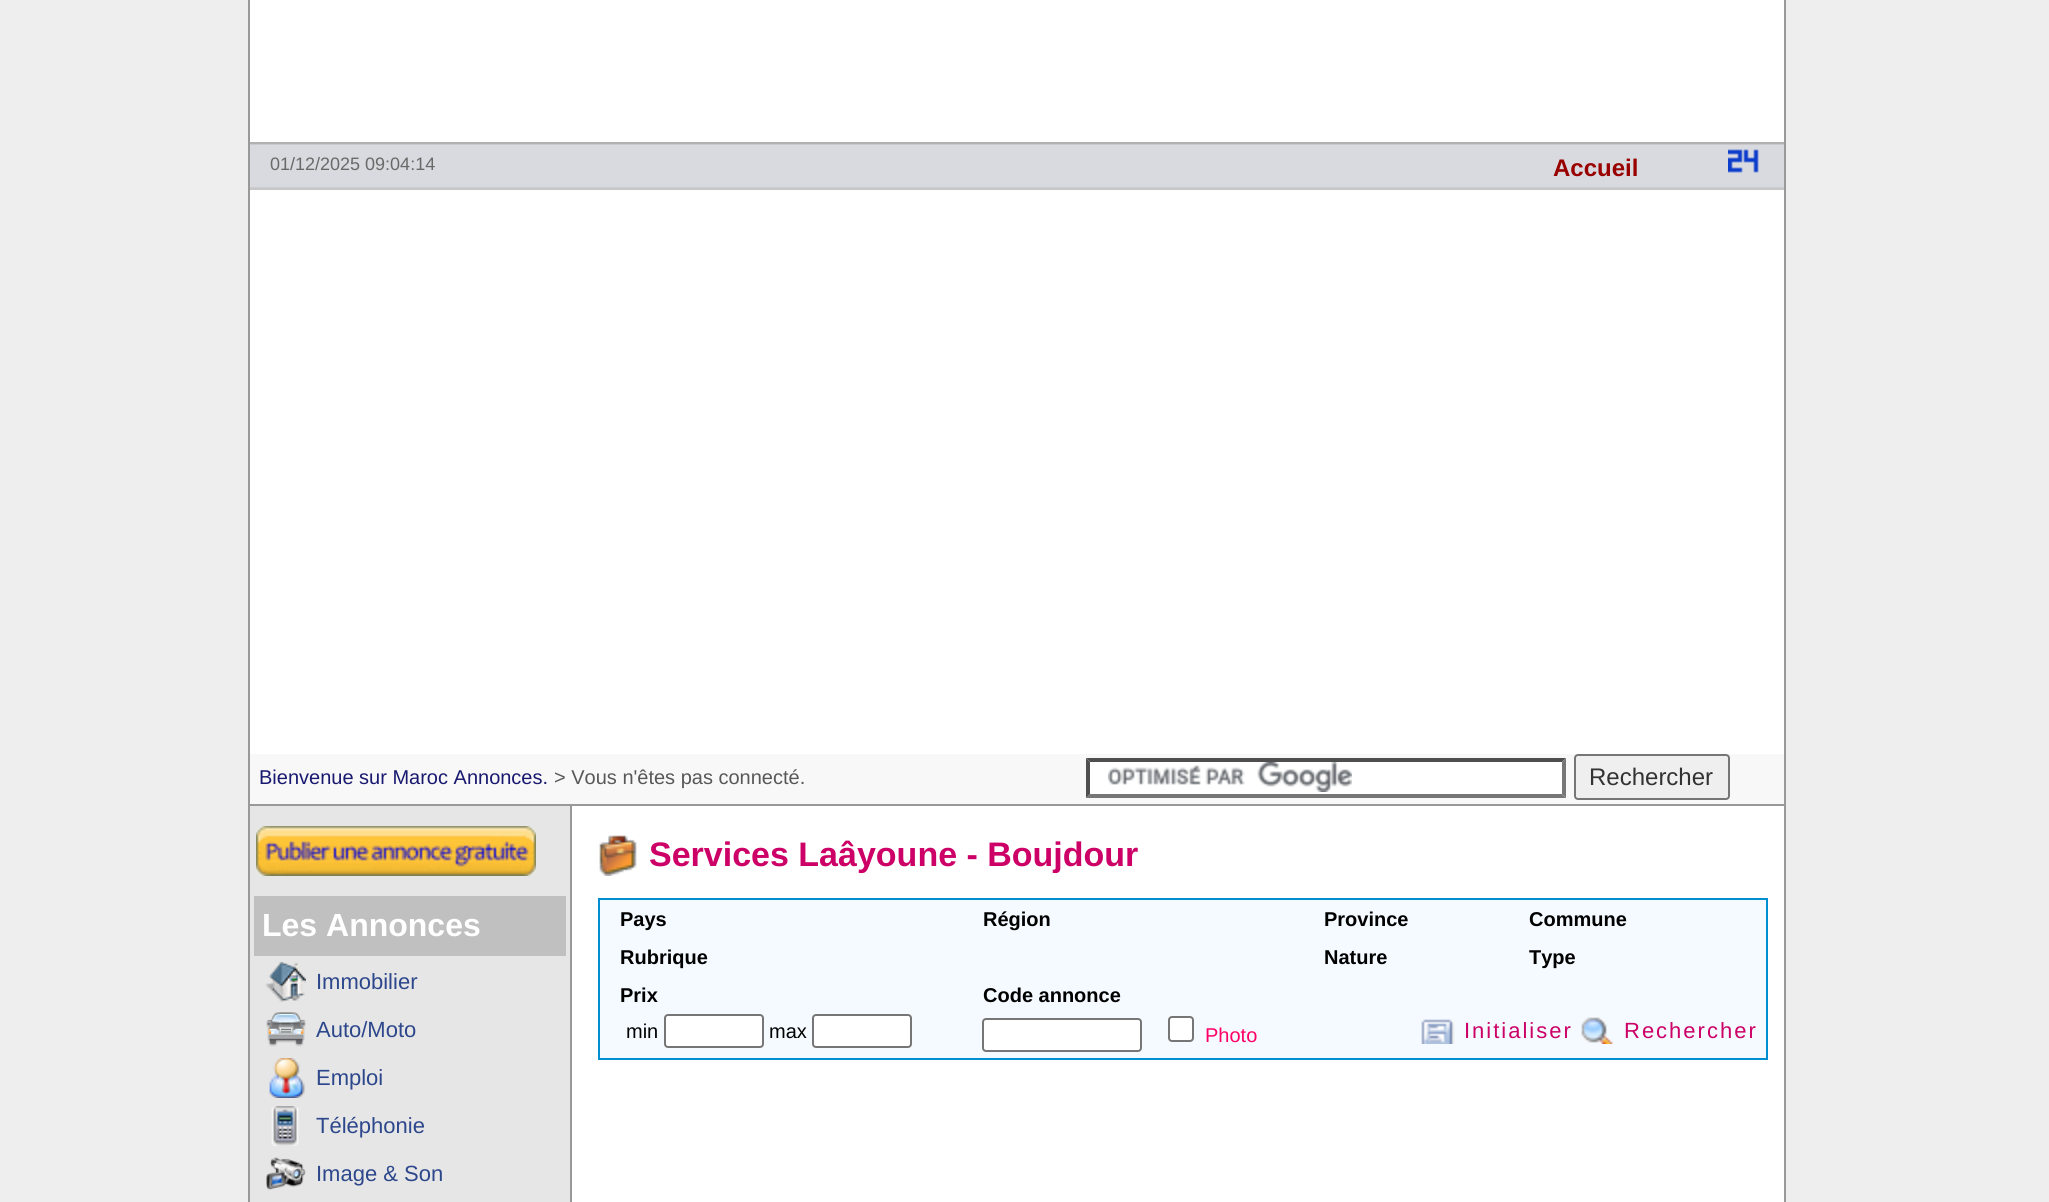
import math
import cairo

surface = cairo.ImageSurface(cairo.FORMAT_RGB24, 2049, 1202)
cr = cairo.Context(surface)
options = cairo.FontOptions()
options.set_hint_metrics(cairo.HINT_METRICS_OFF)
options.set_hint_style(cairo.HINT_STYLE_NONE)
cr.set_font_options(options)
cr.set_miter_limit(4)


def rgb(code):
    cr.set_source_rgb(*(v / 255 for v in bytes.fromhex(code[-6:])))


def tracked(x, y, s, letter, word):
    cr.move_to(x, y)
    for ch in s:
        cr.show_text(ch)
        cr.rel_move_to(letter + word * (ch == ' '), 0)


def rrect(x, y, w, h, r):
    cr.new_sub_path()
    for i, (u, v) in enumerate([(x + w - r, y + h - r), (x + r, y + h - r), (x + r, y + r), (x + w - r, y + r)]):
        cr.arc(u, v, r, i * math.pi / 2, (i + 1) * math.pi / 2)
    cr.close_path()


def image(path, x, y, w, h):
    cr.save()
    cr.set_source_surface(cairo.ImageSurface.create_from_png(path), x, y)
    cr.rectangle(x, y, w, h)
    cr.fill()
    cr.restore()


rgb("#eeeeee")
cr.paint()
rgb("#ffffff")
cr.rectangle(250, 0, 1534, 1202)
cr.fill()
rgb("#999999")
cr.rectangle(248, 0, 2, 1202)
cr.fill()
image("img/1.png", 250, 142, 1534, 46)
image("img/2.png", 1728, 149, 31, 24)
for x, y, w, h, color in [
    (250, 188, 1534, 2, "#c7c7c7"),
    (250, 754, 1534, 50, "#f8f8f8"),
    (1086, 758, 480, 40, "#ffffff"),
]:
    rgb(color)
    cr.rectangle(x, y, w, h)
    cr.fill()
image("img/3.png", 1108, 762, 244, 30)
rgb("#4f4f4f")
cr.new_path()
cr.move_to(1086, 758)
cr.line_to(1566, 758)
cr.line_to(1562, 762)
cr.line_to(1090, 762)
cr.close_path()
cr.fill()
rgb("#767676")
cr.new_path()
cr.move_to(1566, 758)
cr.line_to(1566, 798)
cr.line_to(1562, 794)
cr.line_to(1562, 762)
cr.close_path()
cr.fill()
cr.new_path()
cr.move_to(1566, 798)
cr.line_to(1086, 798)
cr.line_to(1090, 794)
cr.line_to(1562, 794)
cr.close_path()
cr.fill()
rgb("#4f4f4f")
cr.new_path()
cr.move_to(1086, 798)
cr.line_to(1086, 758)
cr.line_to(1090, 762)
cr.line_to(1090, 794)
cr.close_path()
cr.fill()
rgb("#efefef")
rrect(1575, 755, 154, 44, 3)
cr.fill_preserve()
rgb("#767676")
cr.stroke()
rgb("#999999")
cr.rectangle(250, 804, 1534, 2)
cr.fill()
rgb("#e6e6e6")
cr.rectangle(250, 806, 320, 396)
cr.fill()
image("img/4.png", 256, 826, 280, 50)
rgb("#c0c0c0")
cr.rectangle(254, 896, 312, 60)
cr.fill()
image("img/5.png", 266, 962, 40, 40)
image("img/6.png", 266, 1012, 40, 35)
image("img/7.png", 269, 1058, 36, 40)
image("img/8.png", 271, 1106, 28, 40)
image("img/9.png", 266, 1157, 40, 33)
rgb("#999999")
cr.rectangle(570, 806, 2, 396)
cr.fill()
image("img/10.png", 599, 835, 38, 41)
rgb("#f4faff")
cr.rectangle(599, 899, 1168, 160)
cr.fill_preserve()
rgb("#008ed2")
cr.stroke()
rgb("#ffffff")
rrect(665, 1015, 98, 32, 3)
cr.fill_preserve()
rgb("#767676")
cr.stroke()
rgb("#ffffff")
rrect(813, 1015, 98, 32, 3)
cr.fill_preserve()
rgb("#767676")
cr.stroke()
rgb("#ffffff")
rrect(983, 1019, 158, 32, 3)
cr.fill_preserve()
rgb("#767676")
cr.stroke()
rgb("#ffffff")
rrect(1169, 1017, 24, 24, 3)
cr.fill_preserve()
rgb("#767676")
cr.stroke()
image("img/11.png", 1421, 1019, 34, 25)
image("img/12.png", 1581, 1017, 33, 27)
rgb("#999999")
cr.rectangle(1784, 0, 2, 1202)
cr.fill()
cr.select_font_face("Liberation Sans")
cr.set_font_size(18)
rgb("#696969")
cr.move_to(270, 170)
cr.show_text("01/12/2025 09:04:14")
cr.select_font_face("Liberation Sans", cairo.FONT_SLANT_NORMAL, cairo.FONT_WEIGHT_BOLD)
cr.set_font_size(24)
rgb("#990000")
cr.move_to(1553, 176)
cr.show_text("Accueil")
cr.select_font_face("Liberation Sans")
cr.set_font_size(20)
rgb("#191970")
cr.move_to(259, 784)
cr.show_text("Bienvenue sur Maroc Annonces.")
rgb("#585858")
cr.move_to(554, 784)
cr.show_text("> Vous n'êtes pas connecté.")
cr.set_font_size(24)
rgb("#333333")
cr.move_to(1589, 785)
cr.show_text("Rechercher")
cr.select_font_face("Liberation Sans", cairo.FONT_SLANT_NORMAL, cairo.FONT_WEIGHT_BOLD)
cr.set_font_size(32)
rgb("#ffffff")
cr.move_to(262, 936)
cr.show_text("Les Annonces")
cr.select_font_face("Liberation Sans")
cr.set_font_size(22)
rgb("#2c478b")
for x, y, s in [
    (316, 989, "Immobilier"),
    (316, 1037, "Auto/Moto"),
    (316, 1085, "Emploi"),
    (316, 1133, "Téléphonie"),
    (316, 1181, "Image & Son"),
]:
    cr.move_to(x, y)
    cr.show_text(s)
cr.select_font_face("Liberation Sans", cairo.FONT_SLANT_NORMAL, cairo.FONT_WEIGHT_BOLD)
cr.set_font_size(34)
rgb("#cc0066")
cr.move_to(649, 866)
cr.show_text("Services Laâyoune - Boujdour")
cr.set_font_size(20)
rgb("#000000")
for x, y, s in [
    (620, 926, "Pays"),
    (983, 926, "Région"),
    (1324, 926, "Province"),
    (1529, 926, "Commune"),
    (620, 964, "Rubrique"),
    (1324, 964, "Nature"),
    (1529, 964, "Type"),
    (620, 1002, "Prix"),
    (983, 1002, "Code annonce"),
]:
    cr.move_to(x, y)
    cr.show_text(s)
cr.select_font_face("Liberation Sans")
cr.move_to(626, 1038)
cr.show_text("min")
cr.move_to(769, 1038)
cr.show_text("max")
rgb("#ff0066")
cr.move_to(1205, 1042)
cr.show_text("Photo")
cr.set_font_size(22)
rgb("#cc0066")
tracked(1464, 1038, "Initialiser", 2, 0)
tracked(1624, 1038, "Rechercher", 2, 0)
surface.write_to_png("page.png")
